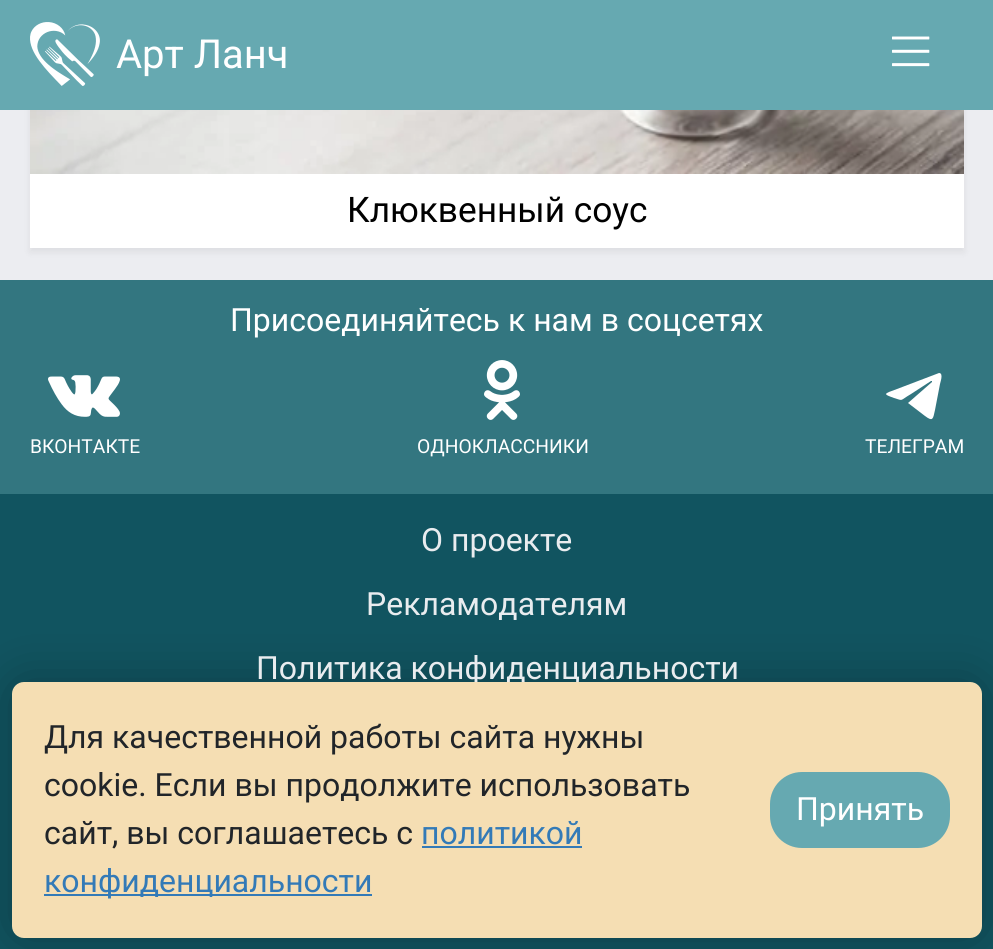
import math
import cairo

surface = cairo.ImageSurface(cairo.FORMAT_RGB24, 993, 949)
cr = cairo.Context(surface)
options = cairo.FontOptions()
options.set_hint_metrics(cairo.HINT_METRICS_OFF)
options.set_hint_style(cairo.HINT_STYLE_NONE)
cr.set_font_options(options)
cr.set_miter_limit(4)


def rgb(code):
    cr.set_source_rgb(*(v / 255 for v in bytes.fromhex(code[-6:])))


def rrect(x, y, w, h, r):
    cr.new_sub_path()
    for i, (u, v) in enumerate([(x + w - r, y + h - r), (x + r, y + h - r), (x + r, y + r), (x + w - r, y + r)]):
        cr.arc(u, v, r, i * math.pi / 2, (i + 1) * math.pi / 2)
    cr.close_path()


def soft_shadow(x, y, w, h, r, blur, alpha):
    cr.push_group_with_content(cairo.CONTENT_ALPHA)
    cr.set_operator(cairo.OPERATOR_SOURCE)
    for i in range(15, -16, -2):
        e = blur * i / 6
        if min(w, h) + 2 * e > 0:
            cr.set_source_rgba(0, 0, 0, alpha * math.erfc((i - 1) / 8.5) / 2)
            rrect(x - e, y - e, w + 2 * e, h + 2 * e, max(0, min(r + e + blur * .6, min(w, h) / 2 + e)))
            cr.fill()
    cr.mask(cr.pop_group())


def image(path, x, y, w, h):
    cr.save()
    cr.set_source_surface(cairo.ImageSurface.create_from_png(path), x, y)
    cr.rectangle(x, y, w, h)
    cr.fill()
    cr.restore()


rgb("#ecedf1")
cr.paint()
rgb("#000000")
soft_shadow(30, -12, 934, 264, 0, 4, 0.07)
rgb("#66a9b1")
cr.rectangle(0, 0, 993, 110)
cr.fill()
image("img/1.png", 30, 22, 70, 64)
image("img/2.png", 892, 36, 38, 31)
rgb("#ffffff")
cr.rectangle(30, 174, 934, 74)
cr.fill()
image("img/3.png", 30, 110, 934, 64)
rgb("#115460")
cr.rectangle(0, 494, 993, 455)
cr.fill()
rgb("#337680")
cr.rectangle(0, 280, 993, 214)
cr.fill()
image("img/4.png", 48, 375, 72, 42)
image("img/5.png", 484, 360, 36, 60)
rgb("#ffffff")
cr.new_path()
cr.move_to(939, 373)
cr.curve_to(944, 373, 940, 383, 940, 384)
cr.line_to(935, 410)
cr.curve_to(933, 419, 933, 422, 925, 416)
cr.line_to(908, 403)
cr.line_to(932, 382)
cr.line_to(932, 381)
cr.line_to(931, 381)
cr.line_to(911, 394)
cr.curve_to(899, 401, 904, 401, 894, 398)
cr.curve_to(883, 394, 883, 394, 897, 389)
cr.close_path()
cr.fill()
rgb("#000000")
soft_shadow(12, 682, 970, 256, 12, 26, 0.26)
cr.select_font_face("Roboto")
cr.set_font_size(40)
rgb("#ffffff")
cr.move_to(116, 68)
cr.show_text("Арт Ланч")
cr.set_font_size(35.25)
rgb("#000000")
cr.move_to(347, 222)
cr.show_text("Клюквенный соус")
cr.set_font_size(32)
rgb("#ffffff")
cr.move_to(230, 331)
cr.show_text("Присоединяйтесь к нам в соцсетях")
cr.set_font_size(19.25)
for x, y, s in [
    (30, 453, "ВКОНТАКТЕ"),
    (417, 453, "ОДНОКЛАССНИКИ"),
    (865, 453, "ТЕЛЕГРАМ"),
]:
    cr.move_to(x, y)
    cr.show_text(s)
cr.set_font_size(32)
rgb("#e9ecef")
for x, y, s in [
    (421, 551, "О проекте"),
    (366, 615, "Рекламодателям"),
    (256, 679, "Политика конфиденциальности"),
]:
    cr.move_to(x, y)
    cr.show_text(s)
rgb("#f5deb3")
rrect(12, 682, 970, 256, 12)
cr.fill()
rgb("#212529")
for x, y, s in [
    (44, 748, "Для качественной работы сайта нужны"),
    (44, 796, "cookie. Если вы продолжите использовать"),
    (44, 844, "сайт, вы соглашаетесь с"),
]:
    cr.move_to(x, y)
    cr.show_text(s)
rgb("#337ab7")
cr.move_to(421, 844)
cr.show_text("политикой")
cr.rectangle(422, 846, 160, 2)
cr.fill()
cr.rectangle(44, 894, 328, 2)
cr.fill()
cr.move_to(44, 892)
cr.show_text("конфиденциальности")
rgb("#66a9b1")
rrect(771, 773, 178, 74, 31)
cr.fill_preserve()
cr.stroke()
rgb("#ffffff")
cr.move_to(796, 820)
cr.show_text("Принять")
surface.write_to_png("page.png")
